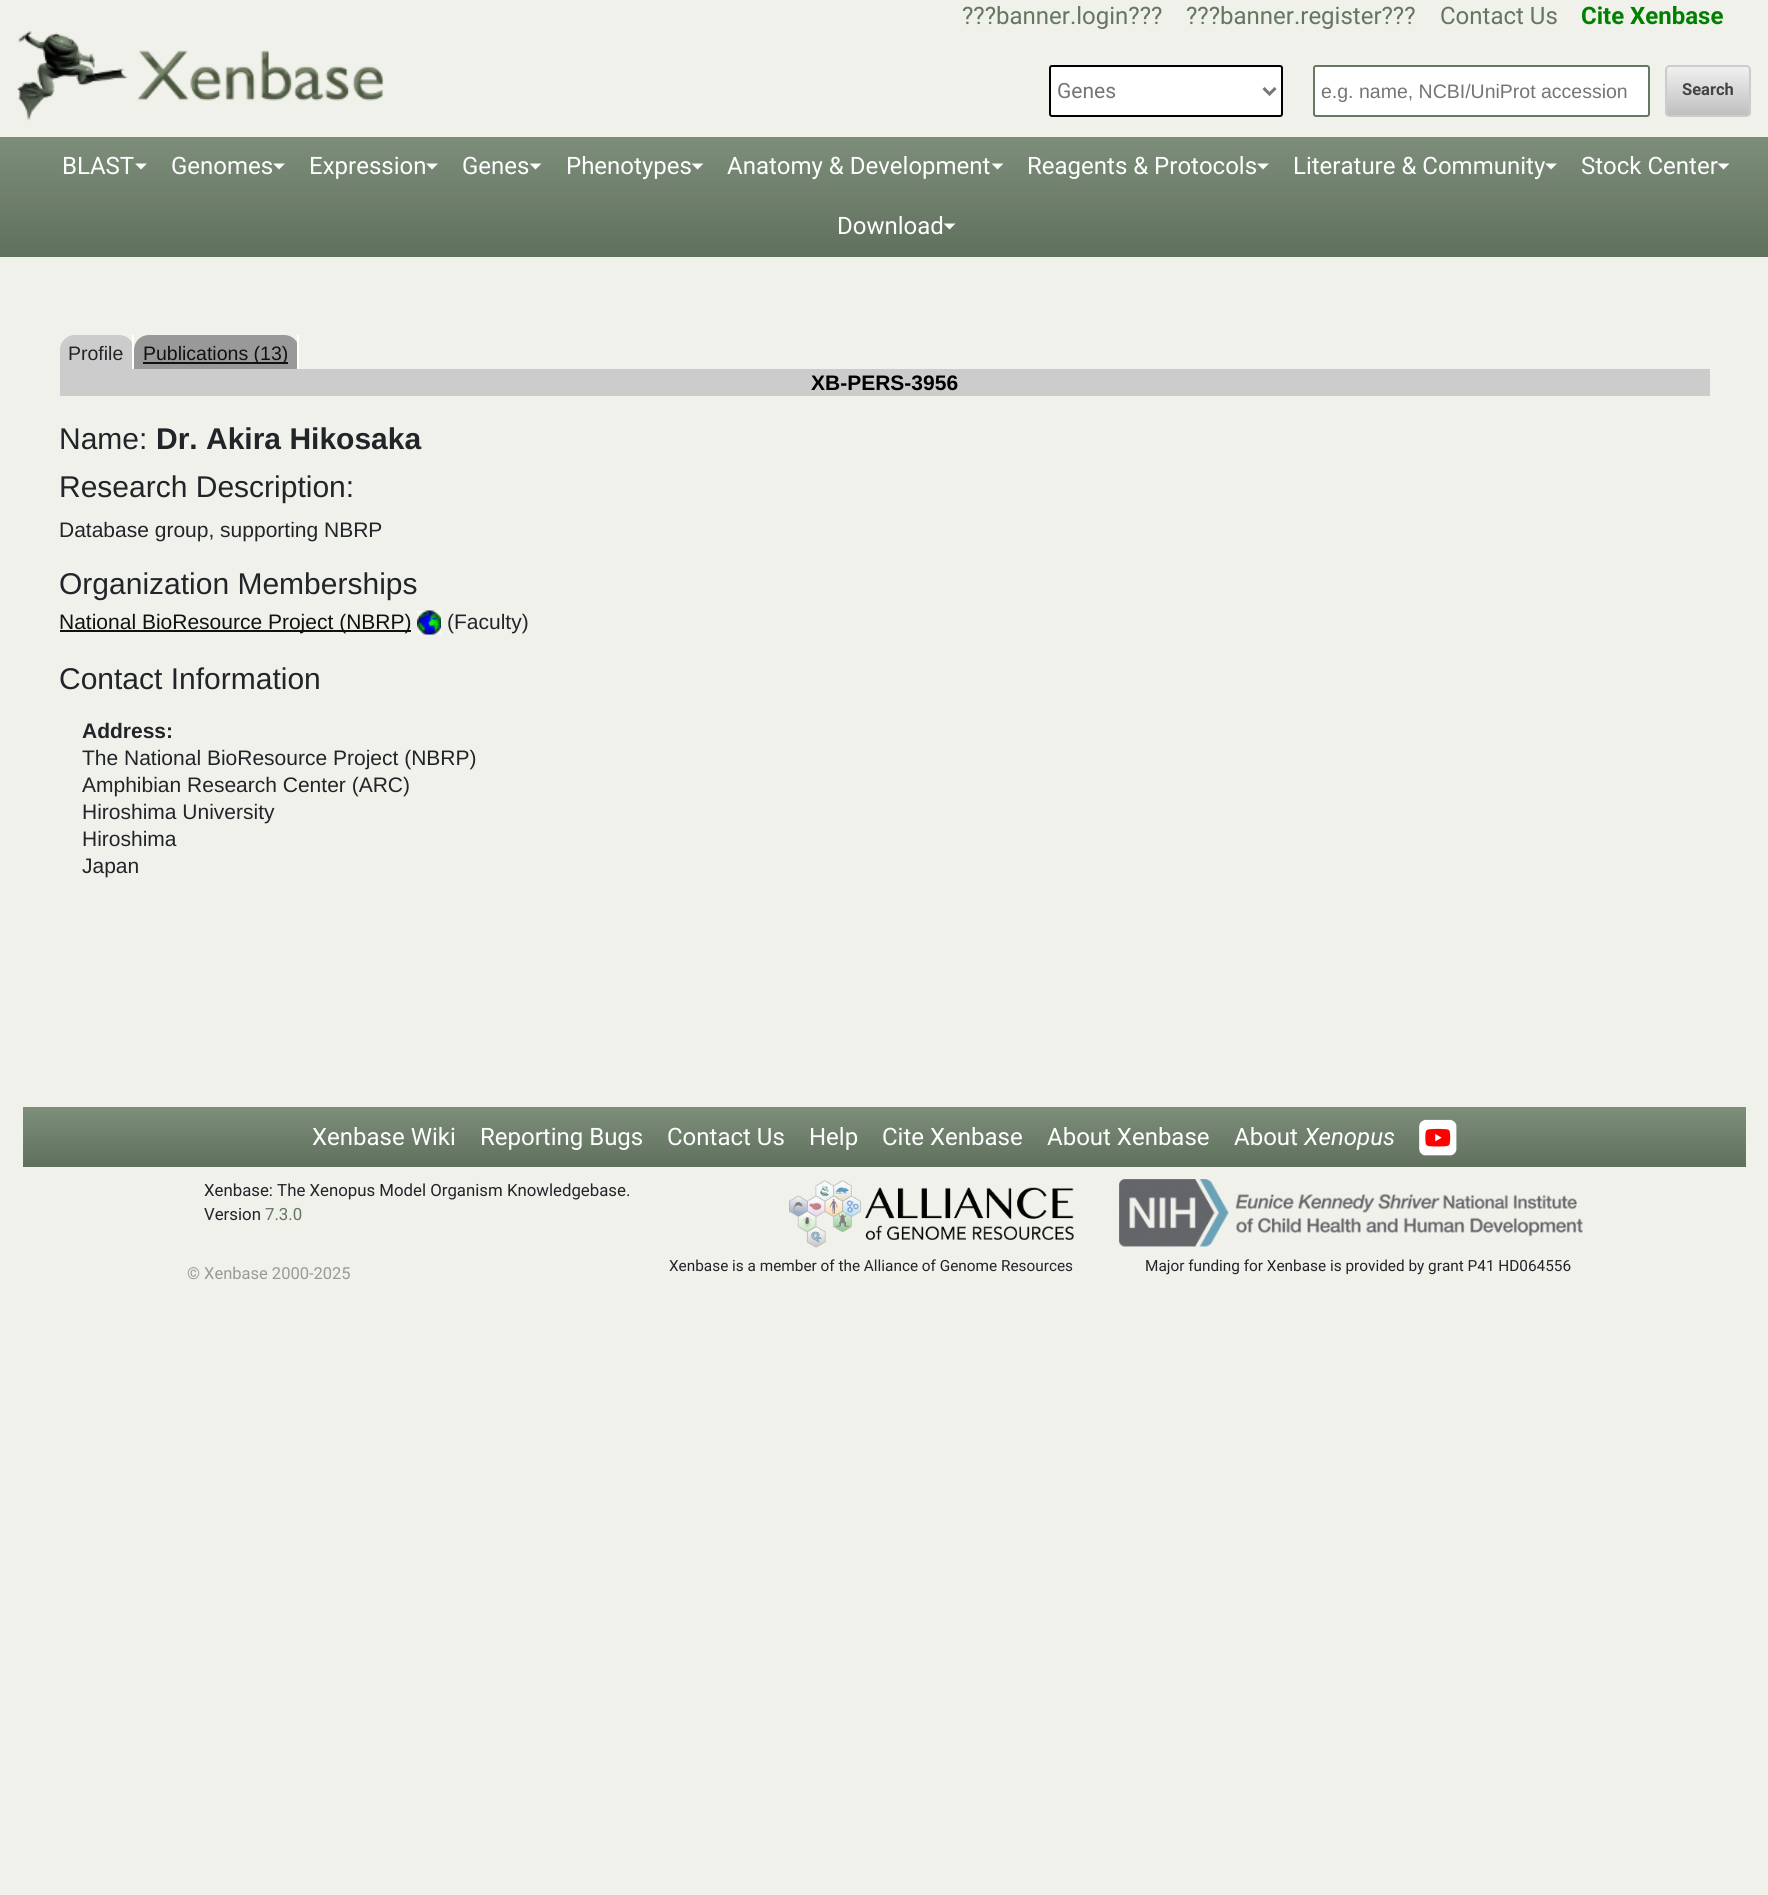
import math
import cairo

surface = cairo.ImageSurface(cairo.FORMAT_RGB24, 1768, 1895)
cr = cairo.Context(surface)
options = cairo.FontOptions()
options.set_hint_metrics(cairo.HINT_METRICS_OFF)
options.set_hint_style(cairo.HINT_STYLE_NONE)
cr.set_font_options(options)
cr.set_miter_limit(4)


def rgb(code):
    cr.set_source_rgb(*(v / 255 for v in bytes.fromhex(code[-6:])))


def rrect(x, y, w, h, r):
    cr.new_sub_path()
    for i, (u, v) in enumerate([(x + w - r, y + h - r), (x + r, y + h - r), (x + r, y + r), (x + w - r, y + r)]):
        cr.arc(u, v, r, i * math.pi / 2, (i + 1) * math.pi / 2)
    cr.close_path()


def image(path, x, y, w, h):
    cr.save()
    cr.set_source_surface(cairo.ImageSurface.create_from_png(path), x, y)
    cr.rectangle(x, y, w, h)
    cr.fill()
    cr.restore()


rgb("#f0f1ea")
cr.paint()
image("img/1.png", 17, 31, 367, 90)
rgb("#ffffff")
rrect(1050, 66, 232, 50, 2)
cr.fill_preserve()
rgb("#000000")
cr.stroke()
cr.new_path()
cr.move_to(1263.5, 88)
cr.line_to(1269.5, 94)
cr.line_to(1275.5, 88)
rgb("#777777")
cr.set_line_width(3)
cr.stroke()
rgb("#ffffff")
rrect(1314, 66, 335, 50, 2)
cr.fill_preserve()
rgb("#667764")
cr.set_line_width(2)
cr.stroke()
cr.save()
rrect(1665, 65, 86, 52, 5)
cr.clip()
gradient = cairo.LinearGradient(1708, 66, 1708, 116)
gradient.add_color_stop_rgba(0, 0.945, 0.945, 0.945, 1)
gradient.add_color_stop_rgba(1, 0.745, 0.745, 0.745, 1)
cr.set_source(gradient)
cr.rectangle(1665, 66, 86, 50)
cr.fill()
cr.restore()
rrect(1666, 66, 84, 50, 4)
rgb("#cccccc")
cr.stroke()
gradient = cairo.LinearGradient(884, 136, 884, 257)
gradient.add_color_stop_rgba(0, 0.49, 0.557, 0.482, 1)
gradient.add_color_stop_rgba(1, 0.373, 0.439, 0.365, 1)
cr.set_source(gradient)
cr.rectangle(0, 137, 1768, 120)
cr.fill()
rgb("#ffffff")
cr.new_path()
cr.move_to(135, 163.5)
cr.line_to(147, 163.5)
cr.line_to(141, 169.5)
cr.close_path()
cr.fill()
cr.new_path()
cr.move_to(273, 163.5)
cr.line_to(285, 163.5)
cr.line_to(279, 169.5)
cr.close_path()
cr.fill()
cr.new_path()
cr.move_to(426, 163.5)
cr.line_to(438, 163.5)
cr.line_to(432, 169.5)
cr.close_path()
cr.fill()
cr.new_path()
cr.move_to(529.5, 163.5)
cr.line_to(541.5, 163.5)
cr.line_to(535.5, 169.5)
cr.close_path()
cr.fill()
cr.new_path()
cr.move_to(691.5, 163.5)
cr.line_to(703.5, 163.5)
cr.line_to(697.5, 169.5)
cr.close_path()
cr.fill()
cr.new_path()
cr.move_to(991.5, 163.5)
cr.line_to(1003.5, 163.5)
cr.line_to(997.5, 169.5)
cr.close_path()
cr.fill()
cr.new_path()
cr.move_to(1257, 163.5)
cr.line_to(1269, 163.5)
cr.line_to(1263, 169.5)
cr.close_path()
cr.fill()
cr.new_path()
cr.move_to(1545, 163.5)
cr.line_to(1557, 163.5)
cr.line_to(1551, 169.5)
cr.close_path()
cr.fill()
cr.new_path()
cr.move_to(1717.5, 163.5)
cr.line_to(1729.5, 163.5)
cr.line_to(1723.5, 169.5)
cr.close_path()
cr.fill()
cr.new_path()
cr.move_to(943.5, 223.5)
cr.line_to(955.5, 223.5)
cr.line_to(949.5, 229.5)
cr.close_path()
cr.fill()
rgb("#cccccc")
cr.new_path()
cr.move_to(75, 335)
cr.line_to(119, 335)
cr.curve_to(127.5, 335, 134, 341.5, 134, 350)
cr.line_to(134, 372)
cr.line_to(60, 372)
cr.line_to(60, 350)
cr.curve_to(60, 341.5, 66.5, 335, 75, 335)
cr.close_path()
cr.fill()
rgb("#ffffff")
cr.rectangle(132, 335, 2, 39)
cr.fill()
rgb("#999999")
cr.new_path()
cr.move_to(149, 335)
cr.line_to(284, 335)
cr.curve_to(292.5, 335, 299, 341.5, 299, 350)
cr.line_to(299, 372)
cr.line_to(134, 372)
cr.line_to(134, 350)
cr.curve_to(134, 341.5, 140.5, 335, 149, 335)
cr.close_path()
cr.fill()
for x, y, w, h, color in [
    (297, 335, 2, 39, "#ffffff"),
    (143, 362, 145, 2, "#111111"),
    (60, 369, 1650, 27, "#cccccc"),
    (60, 630, 351, 2, "#111111"),
]:
    rgb(color)
    cr.rectangle(x, y, w, h)
    cr.fill()
image("img/2.png", 417, 610, 24, 25)
gradient = cairo.LinearGradient(884, 1107, 884, 1167)
gradient.add_color_stop_rgba(0, 0.49, 0.557, 0.482, 1)
gradient.add_color_stop_rgba(1, 0.373, 0.439, 0.365, 1)
cr.set_source(gradient)
cr.rectangle(23, 1107, 1723, 60)
cr.fill()
image("img/3.png", 1419, 1119, 38, 37)
image("img/4.png", 789, 1180, 285, 68)
image("img/5.png", 1119, 1179, 464, 68)
cr.select_font_face("Roboto")
cr.set_font_size(24)
rgb("#647562")
for x, y, s in [
    (962, 24, "???banner.login???"),
    (1186, 24, "???banner.register???"),
    (1440, 24, "Contact Us"),
]:
    cr.move_to(x, y)
    cr.show_text(s)
cr.select_font_face("Roboto", cairo.FONT_SLANT_NORMAL, cairo.FONT_WEIGHT_BOLD)
rgb("#008000")
cr.move_to(1581, 24)
cr.show_text("Cite Xenbase")
cr.select_font_face("Roboto")
cr.set_font_size(21)
rgb("#757575")
cr.move_to(1057, 98)
cr.show_text("Genes")
cr.select_font_face("Liberation Sans")
cr.set_font_size(19.5)
cr.move_to(1321, 98)
cr.show_text("e.g. name, NCBI/UniProt accession")
cr.select_font_face("Roboto", cairo.FONT_SLANT_NORMAL, cairo.FONT_WEIGHT_BOLD)
cr.set_font_size(16.5)
rgb("#444444")
cr.move_to(1682, 95)
cr.show_text("Search")
cr.select_font_face("Roboto")
cr.set_font_size(24)
rgb("#ffffff")
for x, y, s in [
    (62, 174, "BLAST"),
    (171, 174, "Genomes"),
    (309, 174, "Expression"),
    (462, 174, "Genes"),
    (566, 174, "Phenotypes"),
    (727, 174, "Anatomy & Development"),
    (1027, 174, "Reagents & Protocols"),
    (1293, 174, "Literature & Community"),
    (1581, 174, "Stock Center"),
    (837, 234, "Download"),
]:
    cr.move_to(x, y)
    cr.show_text(s)
cr.select_font_face("Liberation Sans")
cr.set_font_size(19.5)
rgb("#212529")
cr.move_to(68, 360)
cr.show_text("Profile")
rgb("#111111")
cr.move_to(143, 360)
cr.show_text("Publications (13)")
cr.select_font_face("Liberation Sans", cairo.FONT_SLANT_NORMAL, cairo.FONT_WEIGHT_BOLD)
cr.set_font_size(21)
rgb("#000000")
cr.move_to(811, 390)
cr.show_text("XB-PERS-3956")
cr.select_font_face("Liberation Sans")
cr.set_font_size(30)
rgb("#212529")
cr.move_to(59, 449)
cr.show_text("Name:")
cr.select_font_face("Liberation Sans", cairo.FONT_SLANT_NORMAL, cairo.FONT_WEIGHT_BOLD)
cr.move_to(156, 449)
cr.show_text("Dr. Akira Hikosaka")
cr.select_font_face("Liberation Sans")
cr.move_to(59, 497)
cr.show_text("Research Description:")
cr.set_font_size(21)
cr.move_to(59, 537)
cr.show_text("Database group, supporting NBRP")
cr.set_font_size(30)
cr.move_to(59, 594)
cr.show_text("Organization Memberships")
cr.set_font_size(21)
rgb("#111111")
cr.move_to(59, 629)
cr.show_text("National BioResource Project (NBRP)")
rgb("#212529")
cr.move_to(447, 629)
cr.show_text("(Faculty)")
cr.set_font_size(30)
cr.move_to(59, 689)
cr.show_text("Contact Information")
cr.select_font_face("Liberation Sans", cairo.FONT_SLANT_NORMAL, cairo.FONT_WEIGHT_BOLD)
cr.set_font_size(21)
cr.move_to(82, 738)
cr.show_text("Address:")
cr.select_font_face("Liberation Sans")
for x, y, s in [
    (82, 765, "The National BioResource Project (NBRP)"),
    (82, 792, "Amphibian Research Center (ARC)"),
    (82, 819, "Hiroshima University"),
    (82, 846, "Hiroshima"),
    (82, 873, "Japan"),
]:
    cr.move_to(x, y)
    cr.show_text(s)
cr.select_font_face("Roboto")
cr.set_font_size(24)
rgb("#ffffff")
for x, y, s in [
    (312, 1145, "Xenbase Wiki"),
    (480, 1145, "Reporting Bugs"),
    (667, 1145, "Contact Us"),
    (809, 1145, "Help"),
    (882, 1145, "Cite Xenbase"),
    (1047, 1145, "About Xenbase"),
    (1234, 1145, "About"),
]:
    cr.move_to(x, y)
    cr.show_text(s)
cr.select_font_face("Roboto", cairo.FONT_SLANT_ITALIC)
cr.move_to(1304, 1145)
cr.show_text("Xenopus")
cr.select_font_face("Roboto")
cr.set_font_size(16.8)
rgb("#212529")
cr.move_to(204, 1196)
cr.show_text("Xenbase: The Xenopus Model Organism Knowledgebase.")
cr.move_to(204, 1220)
cr.show_text("Version")
rgb("#647562")
cr.move_to(265, 1220)
cr.show_text("7.3.0")
cr.set_font_size(16.5)
rgb("#999999")
cr.move_to(187, 1279)
cr.show_text("© Xenbase 2000-2025")
cr.set_font_size(15.35)
rgb("#212529")
cr.move_to(669, 1271)
cr.show_text("Xenbase is a member of the Alliance of Genome Resources")
cr.move_to(1145, 1271)
cr.show_text("Major funding for Xenbase is provided by grant P41 HD064556")
surface.write_to_png("page.png")
